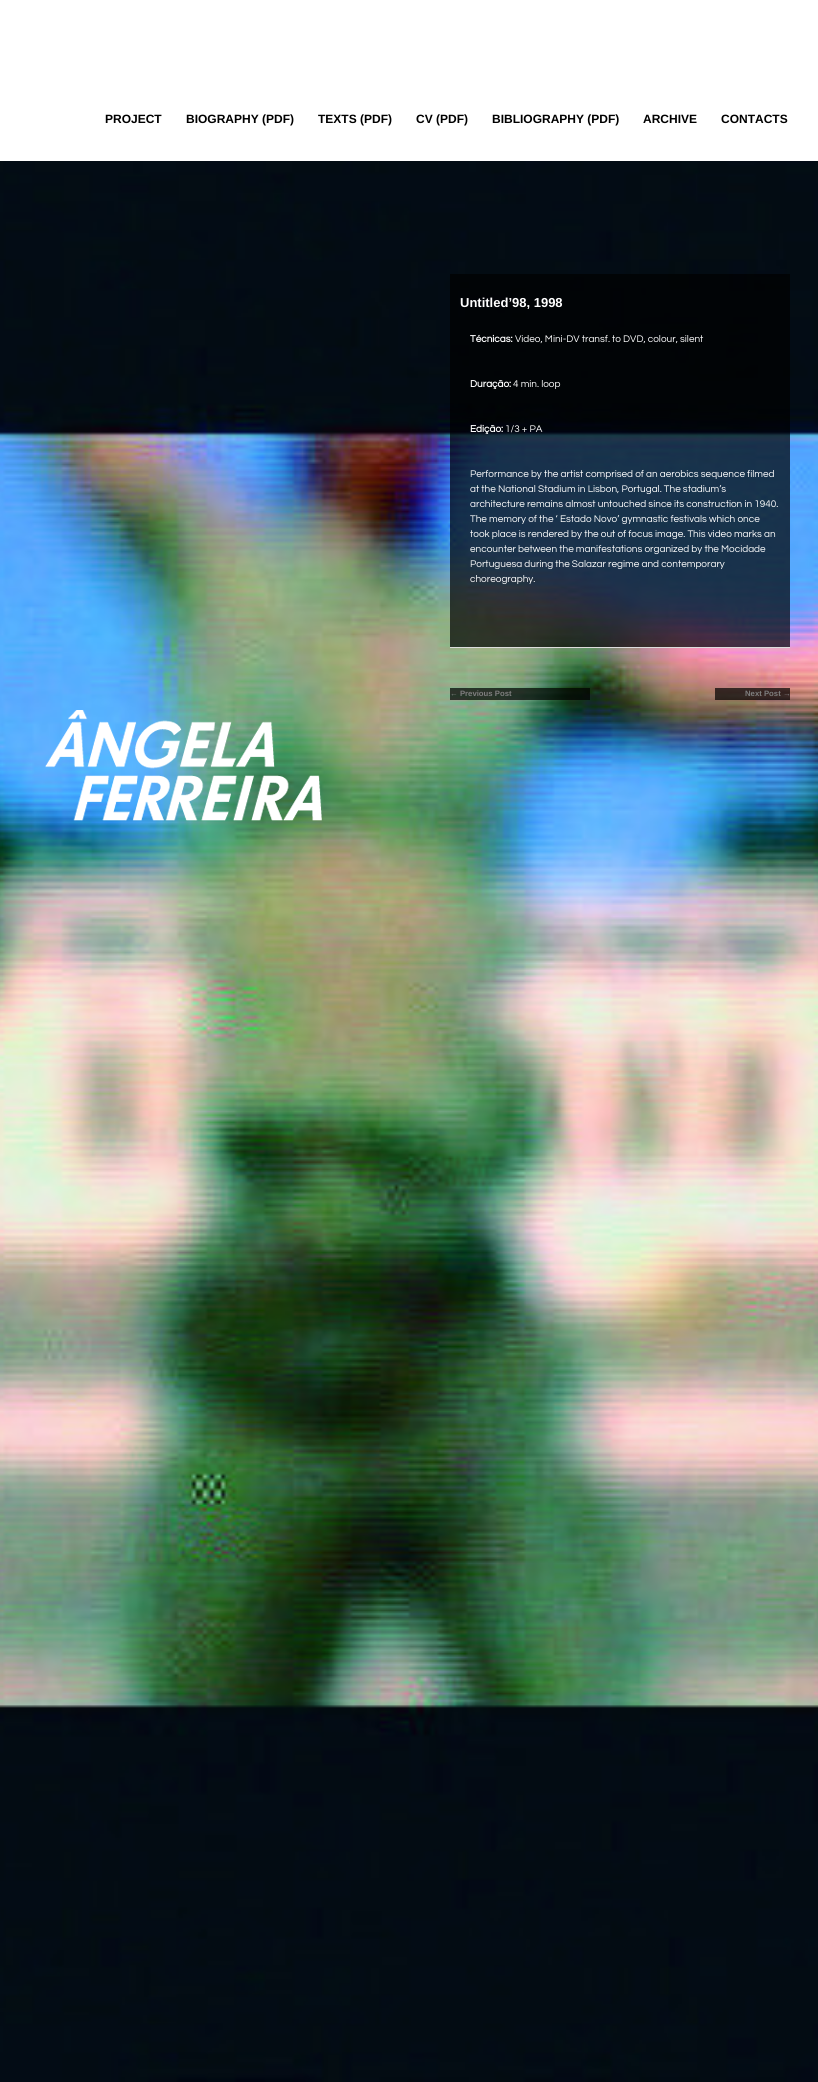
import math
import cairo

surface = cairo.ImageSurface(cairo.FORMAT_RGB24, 818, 2082)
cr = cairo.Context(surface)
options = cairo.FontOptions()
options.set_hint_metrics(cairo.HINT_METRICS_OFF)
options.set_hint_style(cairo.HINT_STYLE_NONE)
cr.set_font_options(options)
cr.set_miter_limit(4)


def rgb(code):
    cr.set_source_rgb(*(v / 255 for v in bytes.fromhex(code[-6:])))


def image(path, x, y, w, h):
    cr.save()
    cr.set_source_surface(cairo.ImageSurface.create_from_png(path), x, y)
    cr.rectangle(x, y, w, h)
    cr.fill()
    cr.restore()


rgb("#ffffff")
cr.paint()
image("img/1.png", 0, 161, 818, 1921)
cr.set_source_rgba(0, 0, 0, 0.7)
cr.rectangle(450, 274, 340, 373)
cr.fill()
rgb("#dddddd")
cr.rectangle(450, 647, 340, 1)
cr.fill()
cr.set_source_rgba(0, 0, 0, 0.7)
cr.rectangle(450, 688, 140, 12)
cr.fill()
cr.rectangle(715, 688, 75, 12)
cr.fill()
image("img/2.png", 45, 710, 277, 111)
cr.select_font_face("Liberation Sans", cairo.FONT_SLANT_NORMAL, cairo.FONT_WEIGHT_BOLD)
cr.set_font_size(12)
rgb("#000000")
for x, y, s in [
    (105, 123, "PROJECT"),
    (186, 123, "BIOGRAPHY (PDF)"),
    (318, 123, "TEXTS (PDF)"),
    (416, 123, "CV (PDF)"),
    (492, 123, "BIBLIOGRAPHY (PDF)"),
    (643, 123, "ARCHIVE"),
    (721, 123, "CONTACTS"),
]:
    cr.move_to(x, y)
    cr.show_text(s)
cr.set_font_size(13)
rgb("#ffffff")
cr.move_to(460, 307)
cr.show_text("Untitled’98, 1998")
cr.select_font_face("Questrial", cairo.FONT_SLANT_NORMAL, cairo.FONT_WEIGHT_BOLD)
cr.set_font_size(10)
cr.move_to(470, 342)
cr.show_text("Técnicas:")
cr.select_font_face("Questrial")
cr.move_to(515, 342)
cr.show_text("Video, Mini-DV transf. to DVD, colour, silent")
cr.select_font_face("Questrial", cairo.FONT_SLANT_NORMAL, cairo.FONT_WEIGHT_BOLD)
cr.move_to(470, 387)
cr.show_text("Duração:")
cr.select_font_face("Questrial")
cr.move_to(513, 387)
cr.show_text("4 min. loop")
cr.select_font_face("Questrial", cairo.FONT_SLANT_NORMAL, cairo.FONT_WEIGHT_BOLD)
cr.move_to(470, 432)
cr.show_text("Edição:")
cr.select_font_face("Questrial")
for x, y, s in [
    (505, 432, "1/3 + PA"),
    (470, 477, "Performance by the artist comprised of an aerobics sequence filmed"),
    (470, 492, "at the National Stadium in Lisbon, Portugal. The stadium’s"),
    (470, 507, "architecture remains almost untouched since its construction in 1940."),
    (470, 522, "The memory of the ‘ Estado Novo’ gymnastic festivals which once"),
    (470, 537, "took place is rendered by the out of focus image. This video marks an"),
    (470, 552, "encounter between the manifestations organized by the Mocidade"),
    (470, 567, "Portuguesa during the Salazar regime and contemporary"),
    (470, 582, "choreography."),
]:
    cr.move_to(x, y)
    cr.show_text(s)
cr.select_font_face("Liberation Sans", cairo.FONT_SLANT_NORMAL, cairo.FONT_WEIGHT_BOLD)
cr.set_font_size(7.75)
rgb("#7e7e7e")
cr.move_to(450, 696)
cr.show_text("← Previous Post")
cr.move_to(745, 696)
cr.show_text("Next Post →")
surface.write_to_png("page.png")
